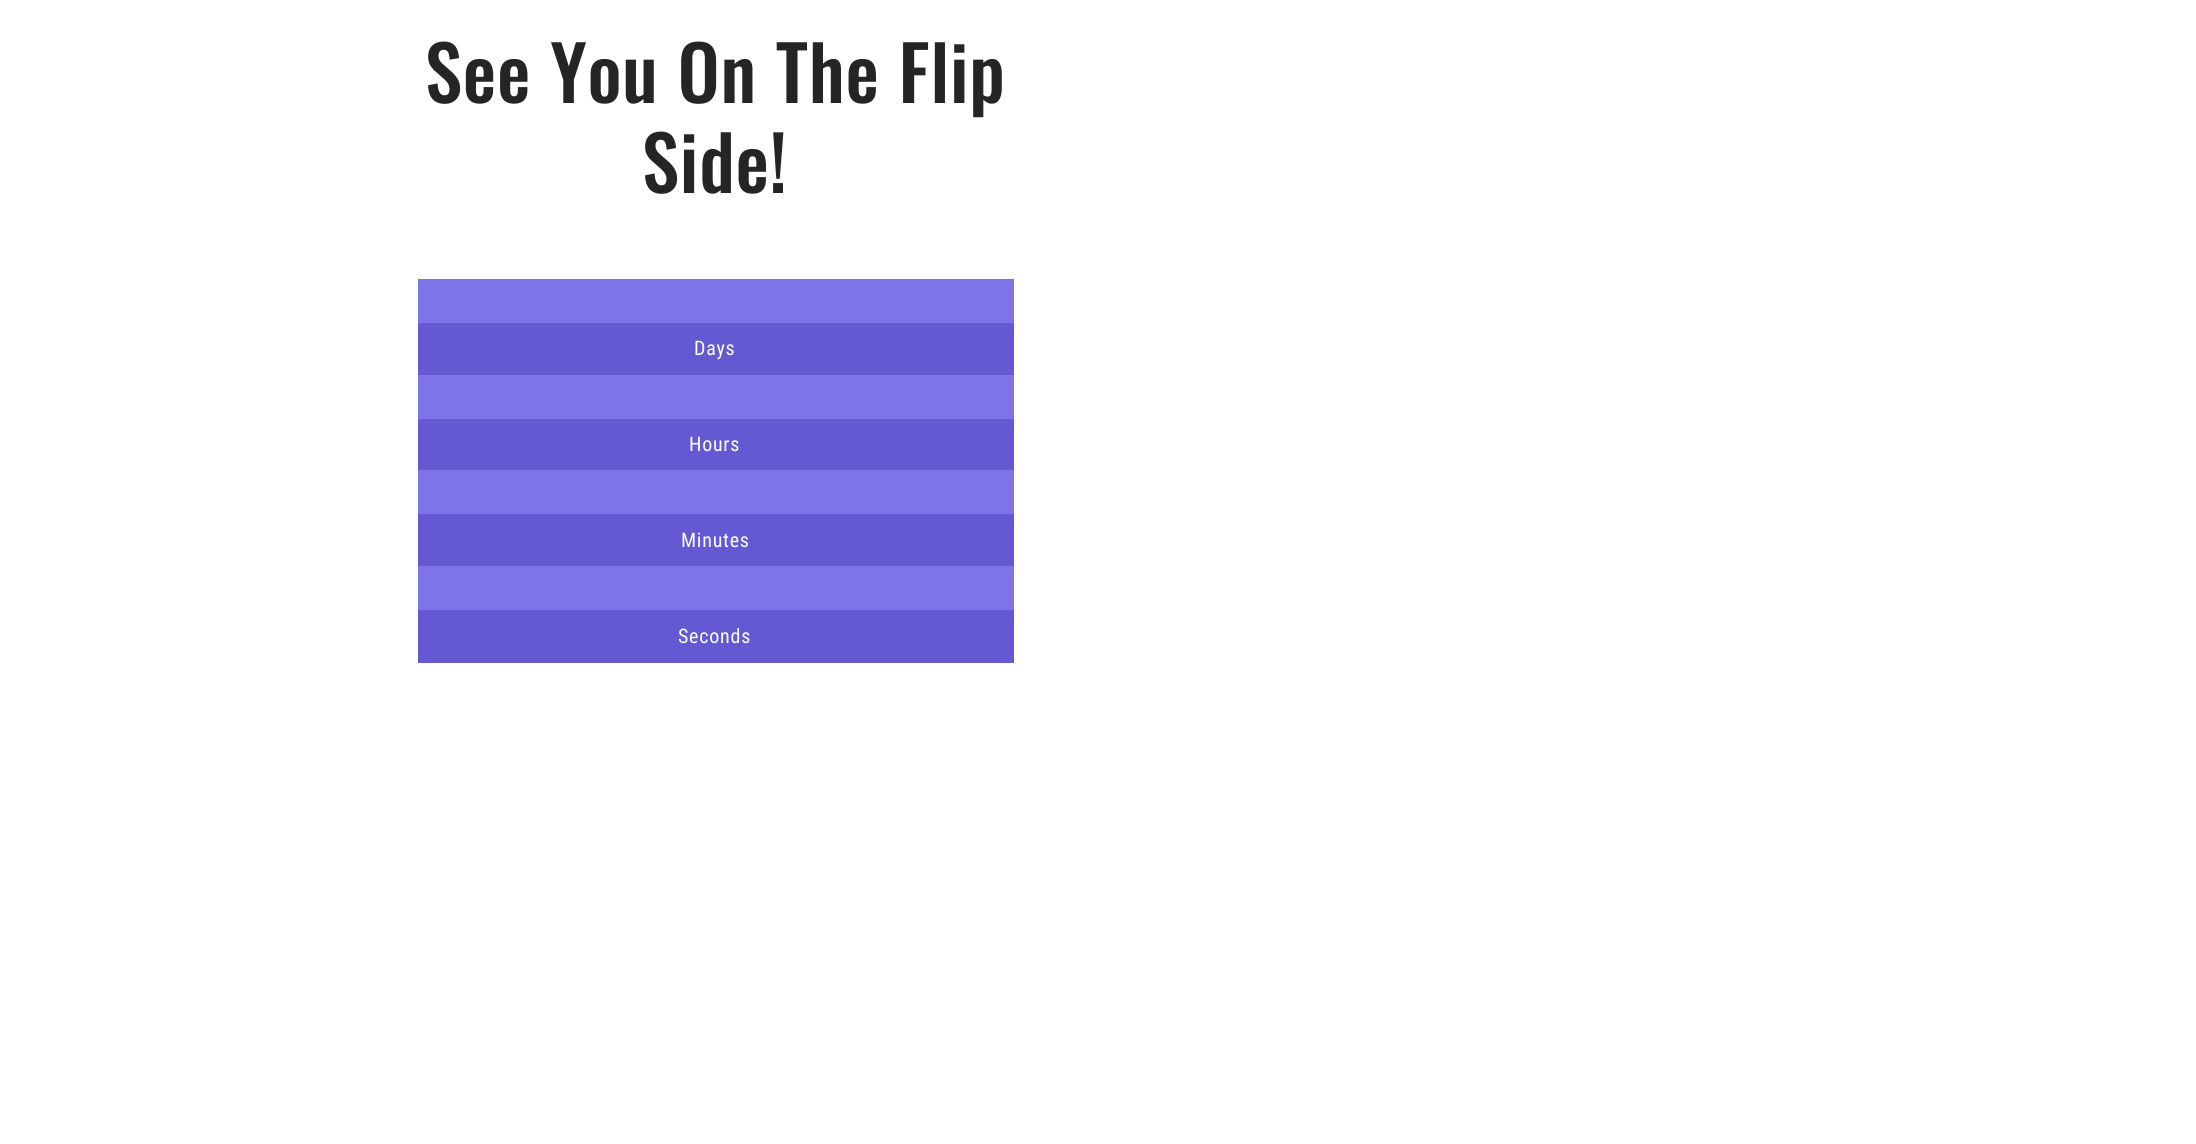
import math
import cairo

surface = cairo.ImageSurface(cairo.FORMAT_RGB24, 2196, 1144)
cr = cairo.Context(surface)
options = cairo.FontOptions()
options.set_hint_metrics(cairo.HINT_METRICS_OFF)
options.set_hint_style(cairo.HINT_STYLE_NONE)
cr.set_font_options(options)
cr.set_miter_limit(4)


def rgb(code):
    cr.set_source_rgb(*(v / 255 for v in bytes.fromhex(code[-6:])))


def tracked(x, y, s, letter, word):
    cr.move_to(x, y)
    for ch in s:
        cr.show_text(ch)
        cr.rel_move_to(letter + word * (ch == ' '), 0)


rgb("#ffffff")
cr.paint()
for x, y, w, h, color in [
    (418, 279, 596, 44, "#7f74e7"),
    (418, 323, 596, 52, "#6458d3"),
    (418, 375, 596, 44, "#7f74e7"),
    (418, 419, 596, 51, "#6458d3"),
    (418, 470, 596, 44, "#7f74e7"),
    (418, 514, 596, 52, "#6458d3"),
    (418, 566, 596, 44, "#7f74e7"),
    (418, 610, 596, 53, "#6458d3"),
]:
    rgb(color)
    cr.rectangle(x, y, w, h)
    cr.fill()
cr.select_font_face("Oswald Medium")
cr.set_font_size(75)
rgb("#252525")
tracked(425, 103, "See You On The Flip", 0.75, 0)
tracked(642, 193, "Side!", 0.75, 0)
cr.select_font_face("Roboto Condensed")
cr.set_font_size(20)
rgb("#ffffff")
for x, y, s in [
    (694, 355, "Days"),
    (689, 451, "Hours"),
    (681, 547, "Minutes"),
    (678, 643, "Seconds"),
]:
    tracked(x, y, s, 0.75, 0)
surface.write_to_png("page.png")
